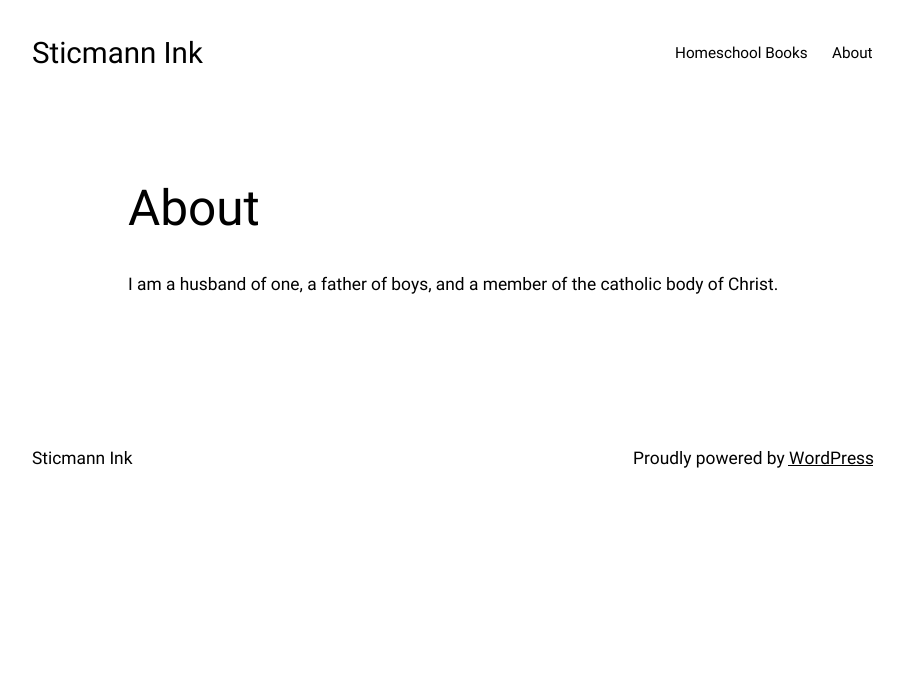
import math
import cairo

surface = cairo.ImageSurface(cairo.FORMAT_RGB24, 905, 675)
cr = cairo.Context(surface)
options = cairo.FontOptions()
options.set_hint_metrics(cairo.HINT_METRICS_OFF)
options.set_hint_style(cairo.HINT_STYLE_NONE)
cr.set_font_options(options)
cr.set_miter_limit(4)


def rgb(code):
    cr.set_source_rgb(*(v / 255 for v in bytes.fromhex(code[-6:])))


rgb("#ffffff")
cr.paint()
rgb("#000000")
cr.rectangle(788, 465, 85, 1)
cr.fill()
cr.select_font_face("Roboto")
cr.set_font_size(29.5)
cr.move_to(32, 63)
cr.show_text("Sticmann Ink")
cr.set_font_size(15.25)
cr.move_to(675, 58)
cr.show_text("Homeschool Books")
cr.move_to(832, 58)
cr.show_text("About")
cr.set_font_size(49.5)
cr.move_to(128, 225)
cr.show_text("About")
cr.set_font_size(17.35)
for x, y, s in [
    (128, 290, "I am a husband of one, a father of boys, and a member of the catholic body of Christ."),
    (32, 464, "Sticmann Ink"),
    (633, 464, "Proudly powered by WordPress"),
]:
    cr.move_to(x, y)
    cr.show_text(s)
surface.write_to_png("page.png")
